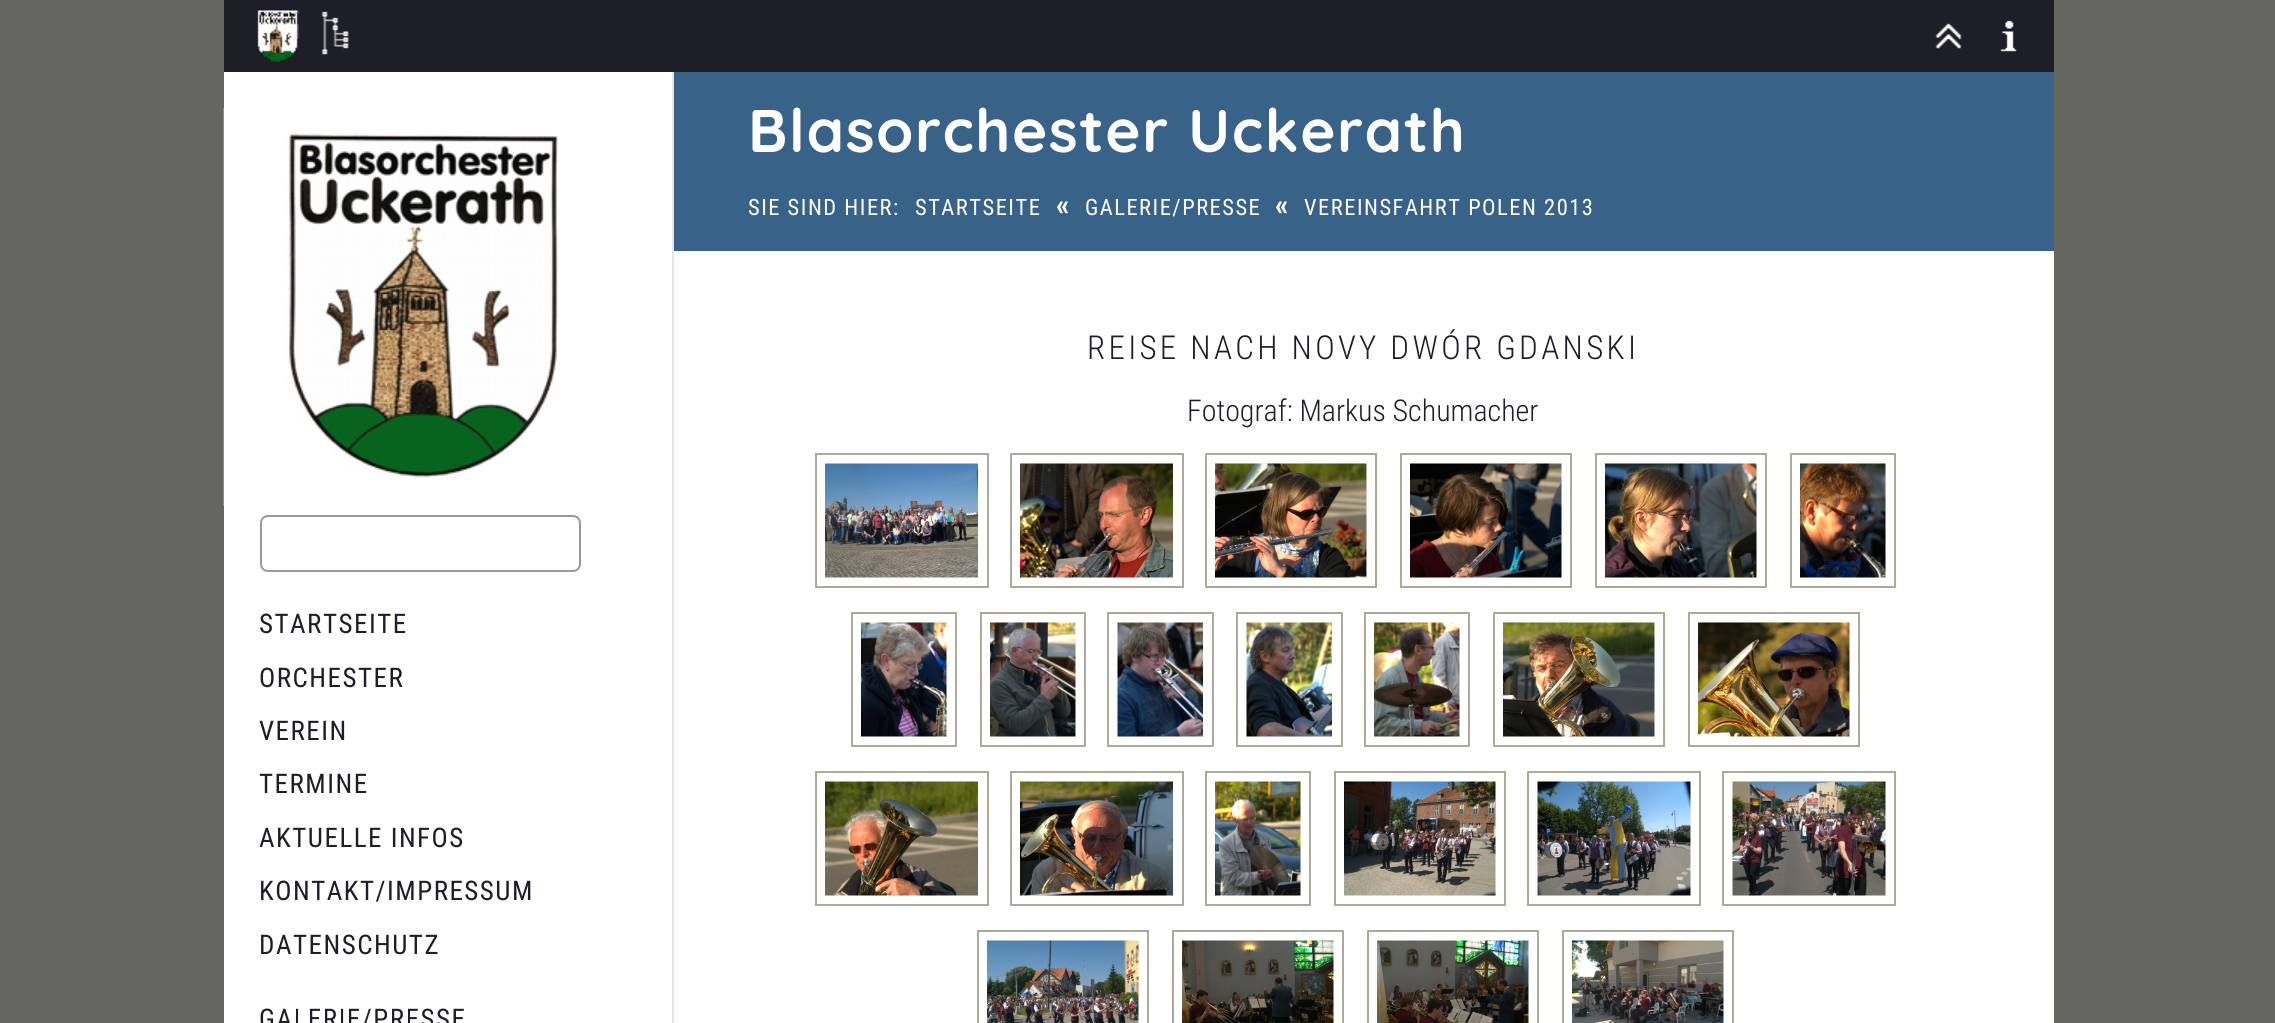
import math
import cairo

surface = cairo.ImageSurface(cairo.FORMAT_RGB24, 2275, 1023)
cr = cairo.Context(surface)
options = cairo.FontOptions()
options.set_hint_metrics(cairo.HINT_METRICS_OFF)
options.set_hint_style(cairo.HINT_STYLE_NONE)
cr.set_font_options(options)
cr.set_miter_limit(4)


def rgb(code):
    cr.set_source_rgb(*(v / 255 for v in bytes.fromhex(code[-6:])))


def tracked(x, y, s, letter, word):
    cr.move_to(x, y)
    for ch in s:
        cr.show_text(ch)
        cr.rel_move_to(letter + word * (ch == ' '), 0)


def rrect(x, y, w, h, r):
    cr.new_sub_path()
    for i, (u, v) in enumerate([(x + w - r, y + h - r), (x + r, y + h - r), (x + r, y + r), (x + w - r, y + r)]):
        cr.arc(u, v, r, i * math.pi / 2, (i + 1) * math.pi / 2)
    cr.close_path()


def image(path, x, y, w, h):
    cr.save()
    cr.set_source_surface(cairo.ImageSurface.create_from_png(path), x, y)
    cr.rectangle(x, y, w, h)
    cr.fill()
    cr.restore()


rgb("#666660")
cr.paint()
rgb("#1e1e28")
cr.rectangle(224, 0, 1830, 72)
cr.fill()
image("img/1.png", 257, 10, 42, 52)
image("img/2.png", 321, 11, 28, 44)
image("img/3.png", 1935, 23, 27, 26)
image("img/4.png", 2000, 20, 17, 32)
rgb("#ffffff")
cr.rectangle(674, 251, 1380, 772)
cr.fill()
rgb("#396288")
cr.rectangle(674, 72, 1380, 179)
cr.fill()
cr.rectangle(816, 454, 172, 133)
rgb("#aaaa99")
cr.stroke()
cr.rectangle(1011, 454, 172, 133)
cr.stroke()
cr.rectangle(1206, 454, 170, 133)
cr.stroke()
cr.rectangle(1401, 454, 170, 133)
cr.stroke()
cr.rectangle(1596, 454, 170, 133)
cr.stroke()
cr.rectangle(1791, 454, 104, 133)
cr.stroke()
image("img/5.png", 825, 463, 153, 115)
image("img/6.png", 1020, 463, 153, 115)
image("img/7.png", 1215, 463, 152, 115)
image("img/8.png", 1410, 463, 152, 115)
image("img/9.png", 1605, 463, 152, 115)
image("img/10.png", 1800, 463, 86, 115)
cr.rectangle(852, 613, 104, 133)
cr.stroke()
cr.rectangle(981, 613, 104, 133)
cr.stroke()
cr.rectangle(1108, 613, 105, 133)
cr.stroke()
cr.rectangle(1237, 613, 105, 133)
cr.stroke()
cr.rectangle(1365, 613, 104, 133)
cr.stroke()
cr.rectangle(1494, 613, 170, 133)
cr.stroke()
cr.rectangle(1689, 613, 170, 133)
cr.stroke()
image("img/11.png", 861, 622, 86, 115)
image("img/12.png", 990, 622, 86, 115)
image("img/13.png", 1117, 622, 86, 115)
image("img/14.png", 1246, 622, 86, 115)
image("img/15.png", 1374, 622, 86, 115)
image("img/16.png", 1503, 622, 152, 115)
image("img/17.png", 1698, 622, 152, 115)
cr.rectangle(816, 772, 172, 133)
cr.stroke()
cr.rectangle(1011, 772, 172, 133)
cr.stroke()
cr.rectangle(1206, 772, 104, 133)
cr.stroke()
cr.rectangle(1335, 772, 170, 133)
cr.stroke()
cr.rectangle(1528, 772, 172, 133)
cr.stroke()
cr.rectangle(1723, 772, 172, 133)
cr.stroke()
image("img/18.png", 825, 781, 153, 115)
image("img/19.png", 1020, 781, 153, 115)
image("img/20.png", 1215, 781, 86, 115)
image("img/21.png", 1344, 781, 152, 115)
image("img/22.png", 1537, 781, 154, 115)
image("img/23.png", 1732, 781, 154, 115)
cr.rectangle(978, 931, 170, 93)
cr.stroke()
cr.rectangle(1173, 931, 170, 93)
cr.stroke()
cr.rectangle(1368, 931, 170, 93)
cr.stroke()
cr.rectangle(1563, 931, 170, 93)
cr.stroke()
image("img/24.png", 987, 940, 152, 83)
image("img/25.png", 1182, 940, 152, 83)
image("img/26.png", 1377, 940, 152, 83)
image("img/27.png", 1572, 940, 152, 83)
rgb("#ffffff")
cr.rectangle(224, 72, 448, 951)
cr.fill()
rgb("#ece3e6")
cr.rectangle(672, 72, 2, 951)
cr.fill()
image("img/28.png", 223, 108, 336, 398)
rrect(261, 516, 319, 55, 7)
rgb("#999999")
cr.stroke()
cr.select_font_face("Quicksand", cairo.FONT_SLANT_NORMAL, cairo.FONT_WEIGHT_BOLD)
cr.set_font_size(60)
rgb("#ffffff")
tracked(748, 152, "Blasorchester Uckerath", 1.5, 0)
cr.select_font_face("Roboto Condensed")
cr.set_font_size(22.5)
tracked(748, 215, "SIE SIND HIER:", 1.5, 0)
tracked(915, 215, "STARTSEITE", 1.5, 0)
cr.select_font_face("Roboto Condensed", cairo.FONT_SLANT_NORMAL, cairo.FONT_WEIGHT_BOLD)
cr.set_font_size(30)
tracked(1056, 215, "«", 1.5, 0)
cr.select_font_face("Roboto Condensed")
cr.set_font_size(22.5)
tracked(1085, 215, "GALERIE/PRESSE", 1.5, 0)
cr.select_font_face("Roboto Condensed", cairo.FONT_SLANT_NORMAL, cairo.FONT_WEIGHT_BOLD)
cr.set_font_size(30)
tracked(1275, 215, "«", 1.5, 0)
cr.select_font_face("Roboto Condensed")
cr.set_font_size(22.5)
tracked(1304, 215, "VEREINSFAHRT POLEN 2013", 1.5, 0)
cr.select_font_face("Roboto Condensed Light")
cr.set_font_size(33)
rgb("#1e1e28")
tracked(1087, 359, "REISE NACH NOVY DWÓR GDANSKI", 3.3, 0)
cr.set_font_size(30)
cr.move_to(1187, 421)
cr.show_text("Fotograf: Markus Schumacher")
cr.select_font_face("Roboto Condensed")
cr.set_font_size(27)
for x, y, s in [
    (259, 633, "STARTSEITE"),
    (259, 687, "ORCHESTER"),
    (259, 740, "VEREIN"),
    (259, 793, "TERMINE"),
    (259, 847, "AKTUELLE INFOS"),
    (259, 900, "KONTAKT/IMPRESSUM"),
    (259, 954, "DATENSCHUTZ"),
    (259, 1028, "GALERIE/PRESSE"),
]:
    tracked(x, y, s, 1.5, 0)
surface.write_to_png("page.png")
